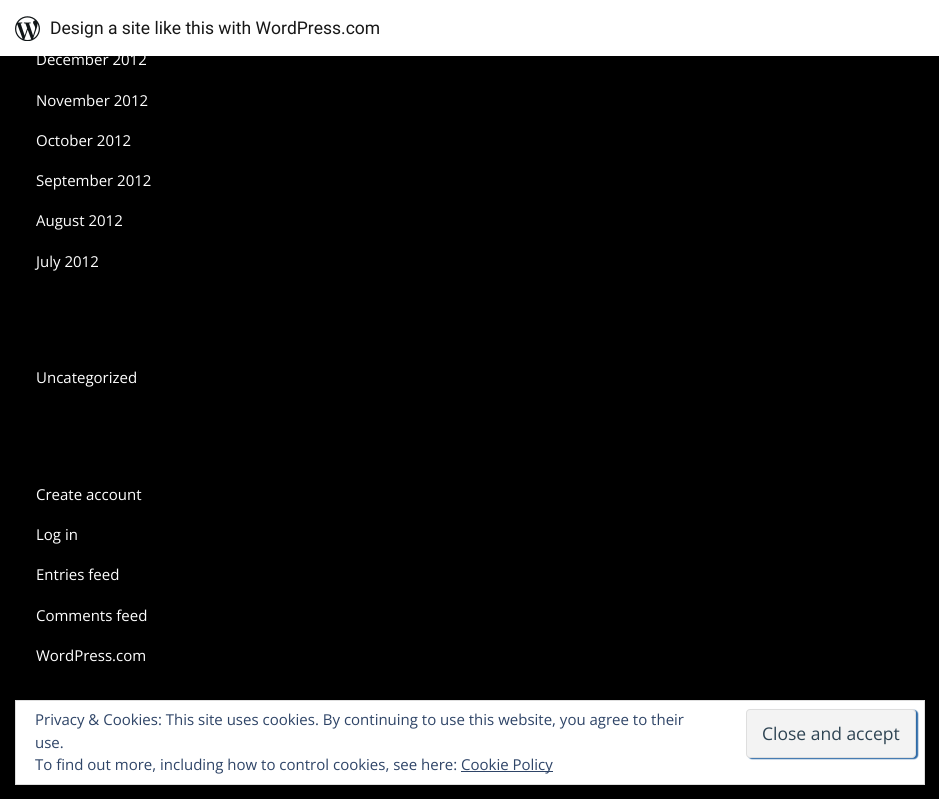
import math
import cairo

surface = cairo.ImageSurface(cairo.FORMAT_RGB24, 939, 799)
cr = cairo.Context(surface)
options = cairo.FontOptions()
options.set_hint_metrics(cairo.HINT_METRICS_OFF)
options.set_hint_style(cairo.HINT_STYLE_NONE)
cr.set_font_options(options)
cr.set_miter_limit(4)


def rgb(code):
    cr.set_source_rgb(*(v / 255 for v in bytes.fromhex(code[-6:])))


def rrect(x, y, w, h, r):
    cr.new_sub_path()
    for i, (u, v) in enumerate([(x + w - r, y + h - r), (x + r, y + h - r), (x + r, y + r), (x + w - r, y + r)]):
        cr.arc(u, v, r, i * math.pi / 2, (i + 1) * math.pi / 2)
    cr.close_path()


def soft_shadow(x, y, w, h, r, blur, alpha):
    cr.push_group_with_content(cairo.CONTENT_ALPHA)
    cr.set_operator(cairo.OPERATOR_SOURCE)
    for i in range(15, -16, -2):
        e = blur * i / 6
        if min(w, h) + 2 * e > 0:
            cr.set_source_rgba(0, 0, 0, alpha * math.erfc((i - 1) / 8.5) / 2)
            rrect(x - e, y - e, w + 2 * e, h + 2 * e, max(0, min(r + e + blur * .6, min(w, h) / 2 + e)))
            cr.fill()
    cr.mask(cr.pop_group())


def image(path, x, y, w, h):
    cr.save()
    cr.set_source_surface(cairo.ImageSurface.create_from_png(path), x, y)
    cr.rectangle(x, y, w, h)
    cr.fill()
    cr.restore()


rgb("#000000")
cr.paint()
soft_shadow(0, 1, 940, 57, 0, 1, 0.05)
cr.set_source_rgba(0, 0, 0, 0.08)
cr.new_path()
cr.move_to(1, 56)
cr.line_to(1, 60)
cr.line_to(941, 60)
cr.line_to(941, 4)
cr.line_to(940, 4)
cr.line_to(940, 56)
cr.close_path()
cr.fill()
rgb("#ffffff")
cr.rectangle(0, 0, 939, 56)
cr.fill()
image("img/1.png", 15, 16, 25, 25)
cr.rectangle(15.5, 700.5, 909, 84)
cr.fill_preserve()
rgb("#dedede")
cr.set_line_width(1)
cr.stroke()
rgb("#2e6aa7")
soft_shadow(748, 710, 170, 49, 4, 0.5, 1)
rgb("#f3f3f3")
rrect(746.5, 709.5, 169, 48, 3.5)
cr.fill_preserve()
rgb("#dedede")
cr.stroke()
rgb("#2e4467")
cr.rectangle(461, 771, 92, 1)
cr.fill()
cr.select_font_face("Roboto")
cr.set_font_size(17.5)
rgb("#171717")
cr.move_to(50, 34)
cr.show_text("Design a site like this with WordPress.com")
cr.select_font_face("Open Sans")
cr.set_font_size(15)
rgb("#ffffff")
for x, y, s in [
    (36, 65, "December 2012"),
    (36, 106, "November 2012"),
    (36, 146, "October 2012"),
    (36, 186, "September 2012"),
    (36, 226, "August 2012"),
    (36, 267, "July 2012"),
    (36, 383, "Uncategorized"),
    (36, 500, "Create account"),
    (36, 540, "Log in"),
    (36, 580, "Entries feed"),
    (36, 621, "Comments feed"),
    (36, 661, "WordPress.com"),
]:
    cr.move_to(x, y)
    cr.show_text(s)
rgb("#2e4467")
cr.move_to(35, 725)
cr.show_text("Privacy & Cookies: This site uses cookies. By continuing to use this website, you agree to their")
cr.move_to(35, 748)
cr.show_text("use.")
cr.set_font_size(17.5)
rgb("#2e4453")
cr.move_to(762, 740)
cr.show_text("Close and accept")
cr.set_font_size(15)
rgb("#2e4467")
cr.move_to(35, 770)
cr.show_text("To find out more, including how to control cookies, see here:")
cr.move_to(461, 770)
cr.show_text("Cookie Policy")
surface.write_to_png("page.png")
